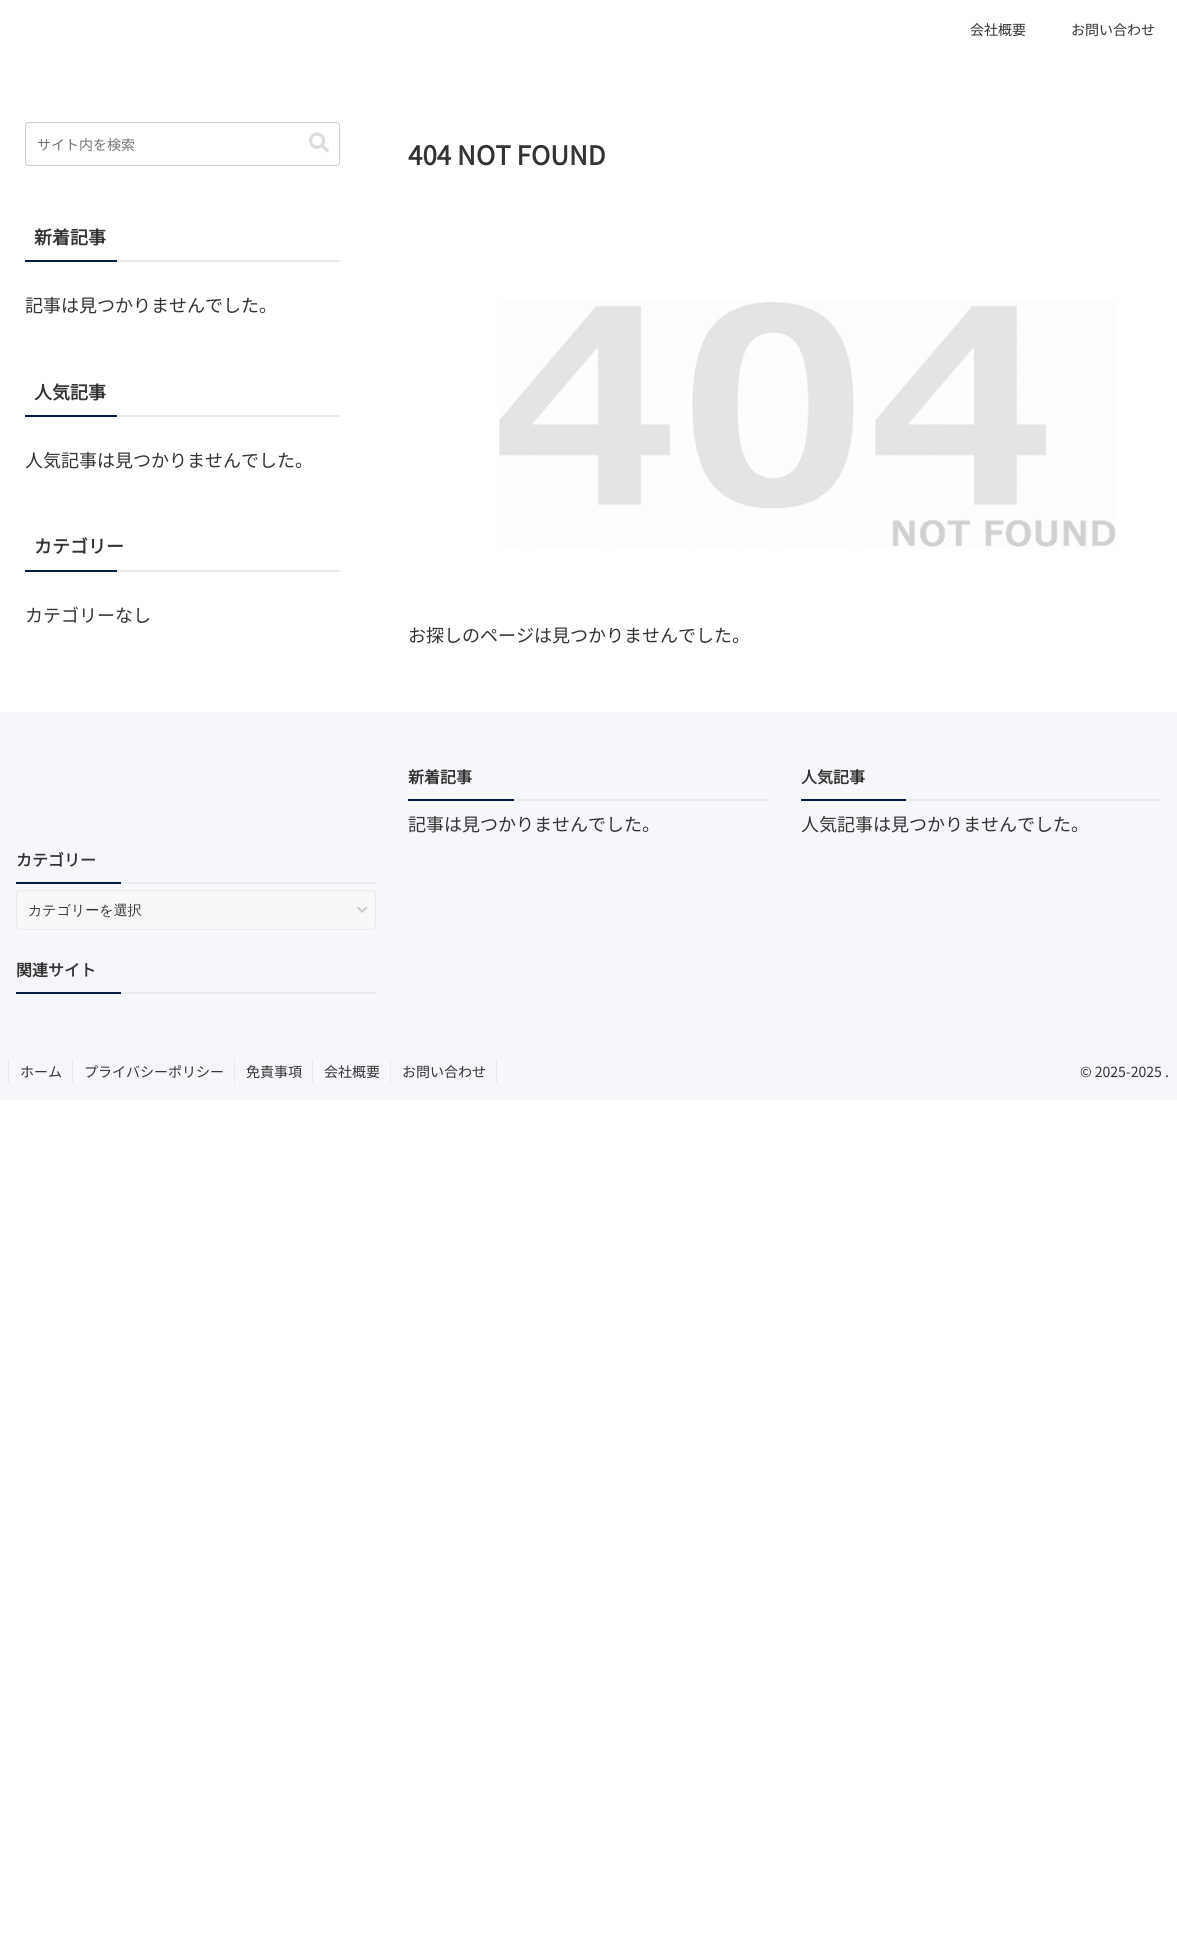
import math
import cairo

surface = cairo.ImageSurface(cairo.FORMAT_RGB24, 1177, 1943)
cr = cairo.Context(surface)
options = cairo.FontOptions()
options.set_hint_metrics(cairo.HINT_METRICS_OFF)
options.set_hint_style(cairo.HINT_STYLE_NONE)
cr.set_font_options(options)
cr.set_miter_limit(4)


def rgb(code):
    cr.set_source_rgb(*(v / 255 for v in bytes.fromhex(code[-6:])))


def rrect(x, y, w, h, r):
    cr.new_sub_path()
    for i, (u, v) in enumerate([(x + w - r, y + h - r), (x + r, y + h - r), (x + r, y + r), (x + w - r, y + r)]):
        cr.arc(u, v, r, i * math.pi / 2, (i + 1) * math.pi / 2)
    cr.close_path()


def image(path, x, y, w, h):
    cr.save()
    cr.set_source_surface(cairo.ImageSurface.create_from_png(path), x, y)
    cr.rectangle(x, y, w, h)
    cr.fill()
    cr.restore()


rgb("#ffffff")
cr.paint()
rrect(25.5, 122.5, 314, 43, 3.5)
rgb("#cccccc")
cr.set_line_width(1)
cr.stroke()
image("img/1.png", 309, 132, 20, 21)
for x, y, w, h, color in [
    (25, 260, 92, 2, "#001d46"),
    (117, 260, 223, 2, "#eaeaea"),
    (25, 415, 92, 2, "#001d46"),
    (117, 415, 223, 2, "#eaeaea"),
    (25, 570, 92, 2, "#001d46"),
    (117, 570, 223, 2, "#eaeaea"),
]:
    rgb(color)
    cr.rectangle(x, y, w, h)
    cr.fill()
image("img/2.png", 498, 301, 618, 248)
for x, y, w, h, color in [
    (0, 712, 1177, 388, "#f5f7fa"),
    (408, 799, 106, 2, "#001d46"),
    (514, 799, 255, 2, "#eaeaea"),
    (801, 799, 105, 2, "#001d46"),
    (906, 799, 255, 2, "#eaeaea"),
    (16, 882, 105, 2, "#001d46"),
    (121, 882, 255, 2, "#eaeaea"),
]:
    rgb(color)
    cr.rectangle(x, y, w, h)
    cr.fill()
rgb("#f7f7f7")
rrect(16.5, 890.5, 359, 39, 3.5)
cr.fill_preserve()
rgb("#eaeaea")
cr.stroke()
image("img/3.png", 357, 906, 11, 7)
for x, y, w, h, color in [
    (16, 992, 105, 2, "#001d46"),
    (121, 992, 255, 2, "#eaeaea"),
    (8, 1059, 1, 25, "#eaeaea"),
    (72, 1059, 1, 25, "#eaeaea"),
    (234, 1059, 1, 25, "#eaeaea"),
    (312, 1059, 1, 25, "#eaeaea"),
    (496, 1059, 1, 25, "#eaeaea"),
    (390, 1059, 1, 25, "#eaeaea"),
]:
    rgb(color)
    cr.rectangle(x, y, w, h)
    cr.fill()
cr.select_font_face("Noto Sans JP Thin")
cr.set_font_size(14)
rgb("#333333")
cr.move_to(970, 35)
cr.show_text("会社概要")
cr.move_to(1071, 35)
cr.show_text("お問い合わせ")
rgb("#757575")
cr.move_to(37, 150)
cr.show_text("サイト内を検索")
cr.select_font_face("Noto Sans JP", cairo.FONT_SLANT_NORMAL, cairo.FONT_WEIGHT_BOLD)
cr.set_font_size(18)
rgb("#333333")
cr.move_to(34, 244)
cr.show_text("新着記事")
cr.select_font_face("Noto Sans JP Thin")
cr.move_to(25, 312)
cr.show_text("記事は見つかりませんでした。")
cr.select_font_face("Noto Sans JP", cairo.FONT_SLANT_NORMAL, cairo.FONT_WEIGHT_BOLD)
cr.move_to(34, 399)
cr.show_text("人気記事")
cr.select_font_face("Noto Sans JP Thin")
cr.move_to(25, 467)
cr.show_text("人気記事は見つかりませんでした。")
cr.select_font_face("Noto Sans JP", cairo.FONT_SLANT_NORMAL, cairo.FONT_WEIGHT_BOLD)
cr.move_to(34, 553)
cr.show_text("カテゴリー")
cr.select_font_face("Noto Sans JP Thin")
cr.move_to(25, 622)
cr.show_text("カテゴリーなし")
cr.select_font_face("Noto Sans JP", cairo.FONT_SLANT_NORMAL, cairo.FONT_WEIGHT_BOLD)
cr.set_font_size(26)
cr.move_to(408, 165)
cr.show_text("404 NOT FOUND")
cr.select_font_face("Noto Sans JP Thin")
cr.set_font_size(18)
cr.move_to(408, 642)
cr.show_text("お探しのページは見つかりませんでした。")
cr.select_font_face("Noto Sans JP", cairo.FONT_SLANT_NORMAL, cairo.FONT_WEIGHT_BOLD)
cr.set_font_size(16)
cr.move_to(408, 783)
cr.show_text("新着記事")
cr.select_font_face("Noto Sans JP Thin")
cr.set_font_size(18)
cr.move_to(408, 831)
cr.show_text("記事は見つかりませんでした。")
cr.select_font_face("Noto Sans JP", cairo.FONT_SLANT_NORMAL, cairo.FONT_WEIGHT_BOLD)
cr.set_font_size(16)
cr.move_to(801, 783)
cr.show_text("人気記事")
cr.select_font_face("Noto Sans JP Thin")
cr.set_font_size(18)
cr.move_to(801, 831)
cr.show_text("人気記事は見つかりませんでした。")
cr.select_font_face("Noto Sans JP", cairo.FONT_SLANT_NORMAL, cairo.FONT_WEIGHT_BOLD)
cr.set_font_size(16)
cr.move_to(16, 866)
cr.show_text("カテゴリー")
cr.select_font_face("WenQuanYi Zen Hei Medium")
cr.set_font_size(14)
cr.move_to(28, 915)
cr.show_text("カテゴリーを選択")
cr.select_font_face("Noto Sans JP", cairo.FONT_SLANT_NORMAL, cairo.FONT_WEIGHT_BOLD)
cr.set_font_size(16)
cr.move_to(16, 976)
cr.show_text("関連サイト")
cr.select_font_face("Noto Sans JP Thin")
cr.set_font_size(14)
for x, y, s in [
    (20, 1077, "ホーム"),
    (84, 1077, "プライバシーポリシー"),
    (246, 1077, "免責事項"),
    (324, 1077, "会社概要"),
    (402, 1077, "お問い合わせ"),
    (1080, 1077, "© 2025-2025 ."),
]:
    cr.move_to(x, y)
    cr.show_text(s)
surface.write_to_png("page.png")
